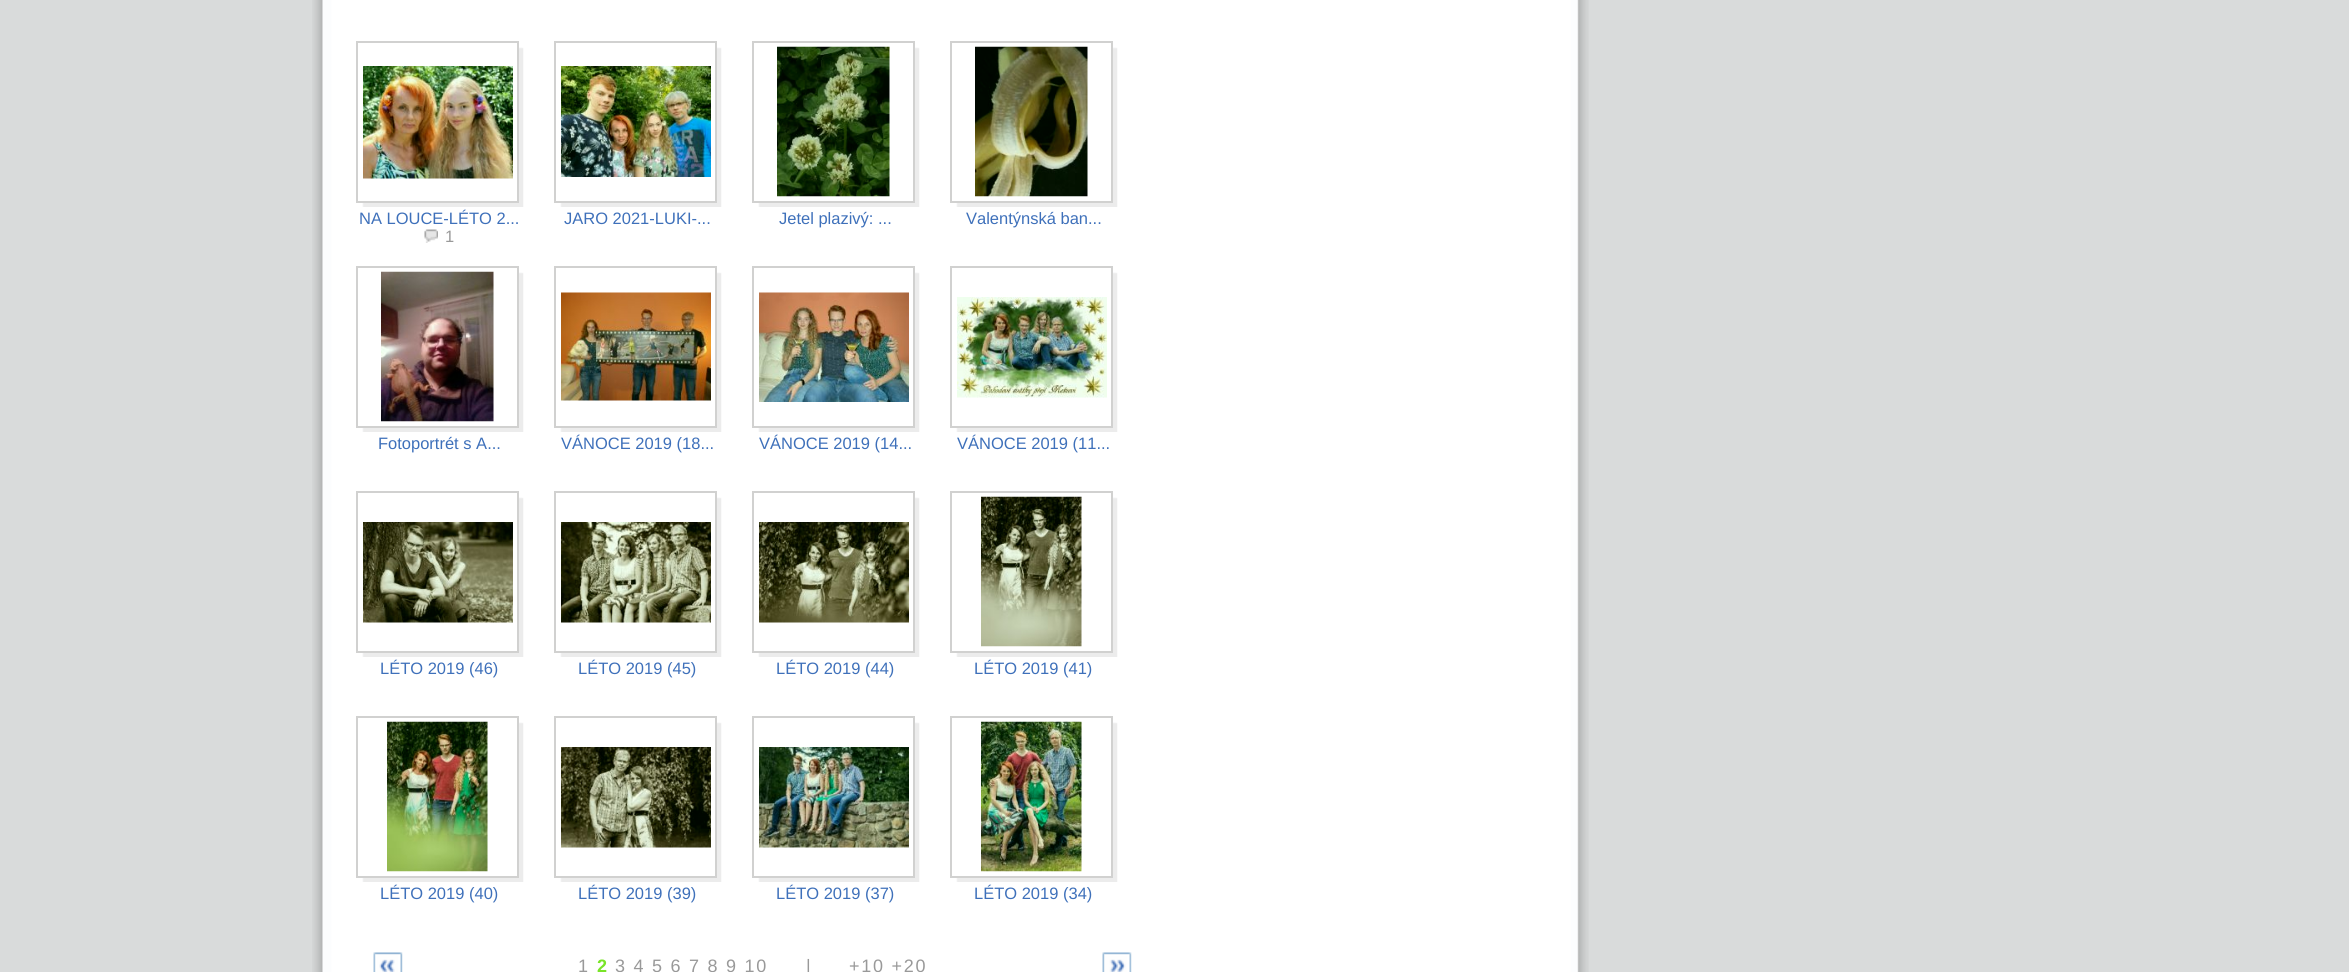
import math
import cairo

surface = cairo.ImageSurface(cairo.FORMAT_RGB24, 2349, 972)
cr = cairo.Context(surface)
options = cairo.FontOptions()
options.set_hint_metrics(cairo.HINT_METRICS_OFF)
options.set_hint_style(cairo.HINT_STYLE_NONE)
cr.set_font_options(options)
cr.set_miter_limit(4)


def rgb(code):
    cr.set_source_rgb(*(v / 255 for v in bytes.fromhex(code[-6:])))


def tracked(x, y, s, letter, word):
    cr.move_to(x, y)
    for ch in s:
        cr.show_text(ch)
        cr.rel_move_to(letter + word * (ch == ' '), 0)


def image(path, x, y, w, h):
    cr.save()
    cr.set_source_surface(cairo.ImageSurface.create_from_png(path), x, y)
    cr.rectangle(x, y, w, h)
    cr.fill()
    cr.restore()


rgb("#d9dbdb")
cr.paint()
image("img/1.png", 312, 0, 1277, 972)
image("img/2.png", 362, 47, 162, 160)
rgb("#ffffff")
cr.rectangle(362, 47, 155, 154)
cr.fill()
cr.rectangle(357, 42, 161, 160)
rgb("#d1d1d0")
cr.stroke()
image("img/3.png", 363, 66, 150, 113)
image("img/4.png", 424, 229, 14, 14)
image("img/2.png", 560, 47, 162, 160)
rgb("#ffffff")
cr.rectangle(560, 47, 155, 154)
cr.fill()
cr.rectangle(555, 42, 161, 160)
rgb("#d1d1d0")
cr.stroke()
image("img/5.png", 561, 66, 150, 111)
image("img/2.png", 758, 47, 162, 160)
rgb("#ffffff")
cr.rectangle(758, 47, 155, 154)
cr.fill()
cr.rectangle(753, 42, 161, 160)
rgb("#d1d1d0")
cr.stroke()
image("img/6.png", 777, 46, 113, 151)
image("img/2.png", 956, 47, 162, 160)
rgb("#ffffff")
cr.rectangle(956, 47, 155, 154)
cr.fill()
cr.rectangle(951, 42, 161, 160)
rgb("#d1d1d0")
cr.stroke()
image("img/7.png", 975, 46, 113, 151)
image("img/2.png", 362, 272, 162, 160)
rgb("#ffffff")
cr.rectangle(362, 272, 155, 154)
cr.fill()
cr.rectangle(357, 267, 161, 160)
rgb("#d1d1d0")
cr.stroke()
image("img/8.png", 381, 271, 113, 151)
image("img/2.png", 560, 272, 162, 160)
rgb("#ffffff")
cr.rectangle(560, 272, 155, 154)
cr.fill()
cr.rectangle(555, 267, 161, 160)
rgb("#d1d1d0")
cr.stroke()
image("img/9.png", 561, 292, 150, 109)
image("img/2.png", 758, 272, 162, 160)
rgb("#ffffff")
cr.rectangle(758, 272, 155, 154)
cr.fill()
cr.rectangle(753, 267, 161, 160)
rgb("#d1d1d0")
cr.stroke()
image("img/10.png", 759, 292, 150, 110)
image("img/2.png", 956, 272, 162, 160)
rgb("#ffffff")
cr.rectangle(956, 272, 155, 154)
cr.fill()
cr.rectangle(951, 267, 161, 160)
rgb("#d1d1d0")
cr.stroke()
image("img/11.png", 957, 297, 150, 101)
image("img/2.png", 362, 497, 162, 160)
rgb("#ffffff")
cr.rectangle(362, 497, 155, 154)
cr.fill()
cr.rectangle(357, 492, 161, 160)
rgb("#d1d1d0")
cr.stroke()
image("img/12.png", 363, 522, 150, 101)
image("img/2.png", 560, 497, 162, 160)
rgb("#ffffff")
cr.rectangle(560, 497, 155, 154)
cr.fill()
cr.rectangle(555, 492, 161, 160)
rgb("#d1d1d0")
cr.stroke()
image("img/13.png", 561, 522, 150, 101)
image("img/2.png", 758, 497, 162, 160)
rgb("#ffffff")
cr.rectangle(758, 497, 155, 154)
cr.fill()
cr.rectangle(753, 492, 161, 160)
rgb("#d1d1d0")
cr.stroke()
image("img/14.png", 759, 522, 150, 101)
image("img/2.png", 956, 497, 162, 160)
rgb("#ffffff")
cr.rectangle(956, 497, 155, 154)
cr.fill()
cr.rectangle(951, 492, 161, 160)
rgb("#d1d1d0")
cr.stroke()
image("img/15.png", 981, 496, 101, 151)
image("img/2.png", 362, 722, 162, 160)
rgb("#ffffff")
cr.rectangle(362, 722, 155, 154)
cr.fill()
cr.rectangle(357, 717, 161, 160)
rgb("#d1d1d0")
cr.stroke()
image("img/16.png", 387, 721, 101, 151)
image("img/2.png", 560, 722, 162, 160)
rgb("#ffffff")
cr.rectangle(560, 722, 155, 154)
cr.fill()
cr.rectangle(555, 717, 161, 160)
rgb("#d1d1d0")
cr.stroke()
image("img/17.png", 561, 747, 150, 101)
image("img/2.png", 758, 722, 162, 160)
rgb("#ffffff")
cr.rectangle(758, 722, 155, 154)
cr.fill()
cr.rectangle(753, 717, 161, 160)
rgb("#d1d1d0")
cr.stroke()
image("img/18.png", 759, 747, 150, 101)
image("img/2.png", 956, 722, 162, 160)
rgb("#ffffff")
cr.rectangle(956, 722, 155, 154)
cr.fill()
cr.rectangle(951, 717, 161, 160)
rgb("#d1d1d0")
cr.stroke()
image("img/19.png", 981, 721, 101, 151)
image("img/20.png", 373, 952, 30, 20)
image("img/21.png", 1102, 952, 30, 20)
cr.select_font_face("Liberation Sans")
cr.set_font_size(16.5)
rgb("#3e70ba")
cr.move_to(359, 224)
cr.show_text("NA LOUCE-LÉTO 2...")
rgb("#999999")
cr.move_to(445, 242)
cr.show_text("1")
rgb("#3e70ba")
for x, y, s in [
    (564, 224, "JARO 2021-LUKI-..."),
    (779, 224, "Jetel plazivý: ..."),
    (966, 224, "Valentýnská ban..."),
    (378, 449, "Fotoportrét s A..."),
    (561, 449, "VÁNOCE 2019 (18..."),
    (759, 449, "VÁNOCE 2019 (14..."),
    (957, 449, "VÁNOCE 2019 (11..."),
    (380, 674, "LÉTO 2019 (46)"),
    (578, 674, "LÉTO 2019 (45)"),
    (776, 674, "LÉTO 2019 (44)"),
    (974, 674, "LÉTO 2019 (41)"),
    (380, 899, "LÉTO 2019 (40)"),
    (578, 899, "LÉTO 2019 (39)"),
    (776, 899, "LÉTO 2019 (37)"),
    (974, 899, "LÉTO 2019 (34)"),
]:
    cr.move_to(x, y)
    cr.show_text(s)
cr.set_font_size(18)
rgb("#999999")
tracked(578, 972, "1", 1.75, 0)
cr.select_font_face("Liberation Sans", cairo.FONT_SLANT_NORMAL, cairo.FONT_WEIGHT_BOLD)
rgb("#79e428")
tracked(597, 972, "2", 1.75, 0)
cr.select_font_face("Liberation Sans")
rgb("#999999")
for x, y, s in [
    (615, 972, "3 4 5 6 7 8 9 10"),
    (806, 972, "|"),
    (849, 972, "+10 +20"),
]:
    tracked(x, y, s, 1.75, 0)
surface.write_to_png("page.png")
